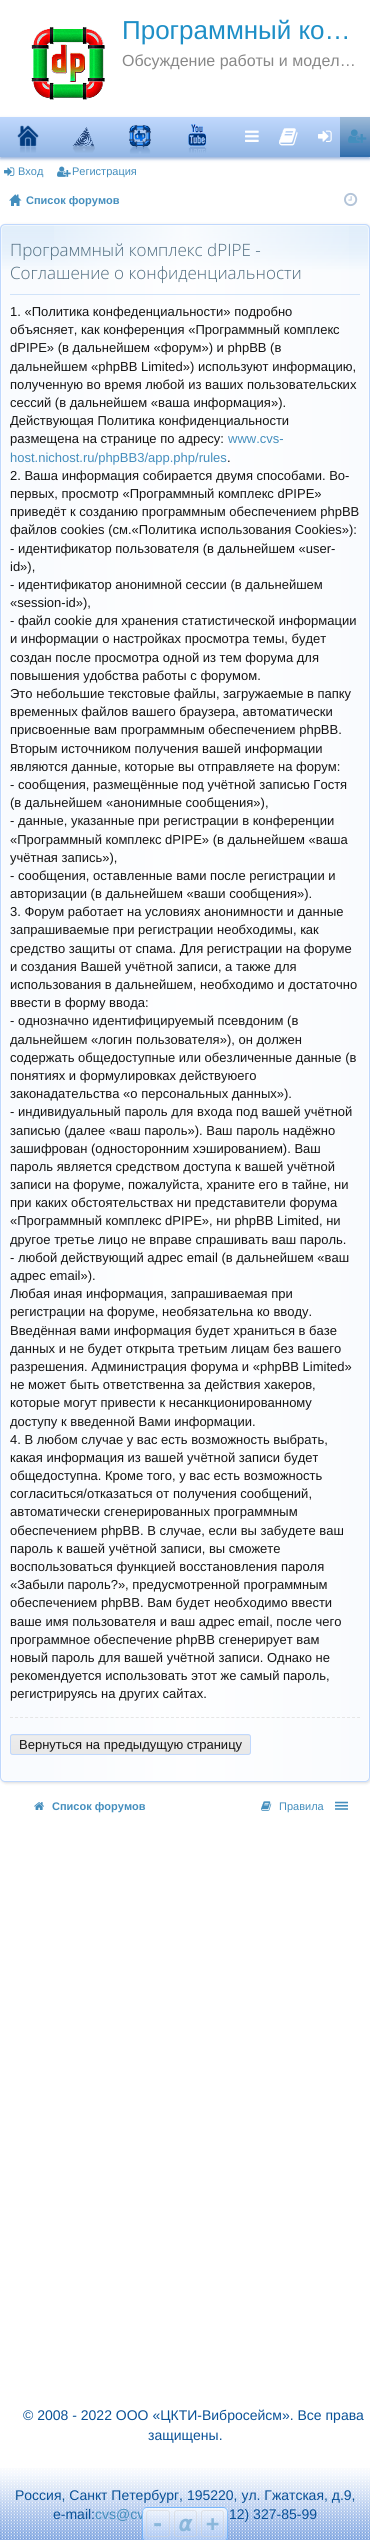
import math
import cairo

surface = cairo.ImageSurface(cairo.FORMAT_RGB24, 370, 2540)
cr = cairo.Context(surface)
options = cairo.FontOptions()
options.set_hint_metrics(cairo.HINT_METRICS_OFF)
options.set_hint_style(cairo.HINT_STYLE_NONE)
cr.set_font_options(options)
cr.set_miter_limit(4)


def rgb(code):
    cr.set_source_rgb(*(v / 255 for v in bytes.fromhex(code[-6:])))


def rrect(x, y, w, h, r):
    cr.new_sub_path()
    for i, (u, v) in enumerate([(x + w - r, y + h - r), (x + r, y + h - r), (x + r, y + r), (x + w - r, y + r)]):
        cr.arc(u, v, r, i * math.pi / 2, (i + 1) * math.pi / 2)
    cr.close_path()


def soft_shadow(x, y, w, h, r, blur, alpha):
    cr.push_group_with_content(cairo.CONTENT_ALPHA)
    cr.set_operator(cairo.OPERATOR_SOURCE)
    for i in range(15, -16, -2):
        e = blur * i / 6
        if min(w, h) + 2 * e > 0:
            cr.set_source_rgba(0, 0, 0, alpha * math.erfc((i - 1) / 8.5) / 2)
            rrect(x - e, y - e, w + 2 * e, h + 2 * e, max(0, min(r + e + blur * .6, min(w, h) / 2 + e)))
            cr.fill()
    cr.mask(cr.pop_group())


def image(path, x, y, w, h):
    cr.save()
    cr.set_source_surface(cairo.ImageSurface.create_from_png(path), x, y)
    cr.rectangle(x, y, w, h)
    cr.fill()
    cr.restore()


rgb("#ffffff")
cr.paint()
image("img/1.png", 31, 27, 74, 73)
rgb("#0343a5")
soft_shadow(0, 119, 370, 40, 0, 1.5, 0.4)
gradient = cairo.LinearGradient(185, 117, 185, 157)
gradient.add_color_stop_rgba(0, 0.753, 0.847, 0.992, 1)
gradient.add_color_stop_rgba(1, 0.573, 0.714, 0.894, 1)
cr.set_source(gradient)
cr.rectangle(0, 117, 340, 40)
cr.fill()
gradient = cairo.LinearGradient(185, 117, 185, 157)
gradient.add_color_stop_rgba(0, 0.239, 0.467, 0.702, 1)
gradient.add_color_stop_rgba(1, 0.192, 0.431, 0.678, 1)
cr.set_source(gradient)
cr.rectangle(340, 117, 30, 40)
cr.fill()
image("img/2.png", 17, 125, 22, 28)
image("img/3.png", 72, 127, 23, 26)
image("img/4.png", 129, 125, 22, 29)
image("img/5.png", 188, 124, 19, 29)
image("img/6.png", 245, 130, 14, 12)
image("img/7.png", 279, 128, 19, 18)
image("img/8.png", 318, 130, 14, 12)
gradient = cairo.LinearGradient(355, 117, 355, 157)
gradient.add_color_stop_rgba(0, 1, 1, 1, 0.5)
gradient.add_color_stop_rgba(1, 1, 1, 1, 0)
cr.set_source(gradient)
cr.rectangle(340, 117, 30, 38)
cr.fill()
image("img/9.png", 348, 129, 19, 14)
image("img/10.png", 4, 167, 11, 9)
image("img/11.png", 57, 166, 14, 11)
image("img/12.png", 9, 194, 13, 12)
image("img/13.png", 344, 192, 14, 15)
rgb("#000000")
soft_shadow(1, 225, 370, 1558, 5, 1.5, 0.15)
rgb("#e8f1fc")
rrect(0, 224, 370, 1558, 5)
cr.fill()
cr.save()
rrect(0, 224, 370, 1558, 5)
cr.clip()
gradient = cairo.LinearGradient(185, 225, 185, 1781)
gradient.add_color_stop_rgba(0, 0.855, 0.922, 0.976, 0.5)
gradient.add_color_stop_rgba(0.01, 0.855, 0.922, 0.976, 0.35)
gradient.add_color_stop_rgba(0.03, 1, 1, 1, 0.75)
cr.set_source(gradient)
cr.rectangle(0, 225, 370, 1556)
cr.fill()
cr.restore()
gradient = cairo.LinearGradient(1, 1003, 369, 1003)
gradient.add_color_stop_rgba(0.1, 1, 1, 1, 0)
gradient.add_color_stop_rgba(0.5, 1, 1, 1, 0.8)
gradient.add_color_stop_rgba(1, 1, 1, 1, 0)
cr.set_source(gradient)
cr.rectangle(54, 225, 295, 1556)
cr.fill()
rrect(1.5, 225.5, 367, 1555, 3.5)
cr.set_source_rgba(1, 1, 1, 0.5)
cr.set_line_width(1)
cr.stroke()
rrect(0.5, 224.5, 369, 1557, 4.5)
rgb("#c0d8fd")
cr.stroke()
rgb("#d1e3f9")
cr.rectangle(10, 294, 350, 1)
cr.fill()
cr.new_path()
cr.move_to(10, 1717.5)
cr.line_to(360, 1717.5)
rgb("#e6e6e6")
cr.set_dash([3, 2.03])
cr.stroke()
rgb("#e8e8e8")
rrect(10, 1734, 241, 21, 3)
cr.fill()
cr.save()
rrect(10, 1734, 241, 21, 3)
cr.clip()
gradient = cairo.LinearGradient(131, 1736, 131, 1755)
gradient.add_color_stop_rgba(0, 0.929, 0.929, 0.929, 1)
gradient.add_color_stop_rgba(1, 0.91, 0.91, 0.91, 1)
cr.set_source(gradient)
cr.new_path()
cr.move_to(10, 1736)
cr.line_to(251, 1736)
cr.line_to(251, 1752)
cr.curve_to(251, 1753.5, 249.5, 1755, 248, 1755)
cr.line_to(13, 1755)
cr.curve_to(11.5, 1755, 10, 1753.5, 10, 1752)
cr.close_path()
cr.fill()
cr.restore()
rrect(10.5, 1734.5, 240, 20, 2.5)
rgb("#c0d8fd")
cr.set_dash([])
cr.stroke()
image("img/14.png", 34, 1802, 10, 8)
image("img/15.png", 261, 1801, 11, 10)
image("img/16.png", 335, 1801, 13, 9)
image("img/17.png", 0, 2468, 370, 72)
cr.save()
rrect(142, 2507, 86, 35, 5)
cr.clip()
gradient = cairo.LinearGradient(185, 2508, 185, 2475)
gradient.add_color_stop_rgba(0, 0.753, 0.839, 0.973, 1)
gradient.add_color_stop_rgba(1, 0.953, 0.965, 0.988, 1)
cr.set_source(gradient)
cr.rectangle(142, 2507, 86, 1)
cr.fill()
cr.restore()
cr.select_font_face("Liberation Sans")
cr.set_font_size(26)
rgb("#1e8fc7")
cr.move_to(122, 39)
cr.show_text("Программный ко…")
cr.set_font_size(16)
rgb("#888888")
cr.move_to(122, 66)
cr.show_text("Обсуждение работы и модел…")
cr.set_font_size(11)
rgb("#448ebd")
cr.move_to(18, 175)
cr.show_text("Вход")
cr.move_to(72, 175)
cr.show_text("Регистрация")
cr.select_font_face("Liberation Sans", cairo.FONT_SLANT_NORMAL, cairo.FONT_WEIGHT_BOLD)
cr.move_to(26, 204)
cr.show_text("Список форумов")
cr.select_font_face("Open Sans Light")
cr.set_font_size(17)
rgb("#4f6c7f")
cr.move_to(10, 256)
cr.show_text("Программный комплекс dPIPE -")
cr.move_to(10, 279)
cr.show_text("Соглашение о конфиденциальности")
cr.select_font_face("Liberation Sans")
cr.set_font_size(13)
rgb("#141414")
for x, y, s in [
    (10, 316, "1. «Политика конфеденциальности» подробно"),
    (10, 334, "объясняет, как конференция «Программный комплекс"),
    (10, 352, "dPIPE» (в дальнейшем «форум») и phpBB (в"),
    (10, 371, "дальнейшем «phpBB Limited») используют информацию,"),
    (10, 389, "полученную во время любой из ваших пользовательских"),
    (10, 407, "сессий (в дальнейшем «ваша информация»)."),
    (10, 425, "Действующая Политика конфиденциальности"),
    (10, 443, "размещена на странице по адресу:"),
]:
    cr.move_to(x, y)
    cr.show_text(s)
rgb("#448ebd")
cr.move_to(228, 443)
cr.show_text("www.cvs-")
cr.move_to(10, 462)
cr.show_text("host.nichost.ru/phpBB3/app.php/rules")
rgb("#141414")
for x, y, s in [
    (227, 462, "."),
    (10, 480, "2. Ваша информация собирается двумя способами. Во-"),
    (10, 498, "первых, просмотр «Программный комплекс dPIPE»"),
    (10, 516, "приведёт к созданию программным обеспечением phpBB"),
    (10, 534, "файлов cookies (см.«Политика использования Cookies»):"),
    (10, 553, "- идентификатор пользователя (в дальнейшем «user-"),
    (10, 571, "id»),"),
    (10, 589, "- идентификатор анонимной сессии (в дальнейшем"),
    (10, 607, "«session-id»),"),
    (10, 625, "- файл cookie для хранения статистической информации"),
    (10, 643, "и информации о настройках просмотра темы, будет"),
    (10, 662, "создан после просмотра одной из тем форума для"),
    (10, 680, "повышения удобства работы с форумом."),
    (10, 698, "Это небольшие текстовые файлы, загружаемые в папку"),
    (10, 716, "временных файлов вашего браузера, автоматически"),
    (10, 734, "присвоенные вам программным обеспечением phpBB."),
    (10, 753, "Вторым источником получения вашей информации"),
    (10, 771, "являются данные, которые вы отправляете на форум:"),
    (10, 789, "- сообщения, размещённые под учётной записью Гостя"),
    (10, 807, "(в дальнейшем «анонимные сообщения»),"),
    (10, 825, "- данные, указанные при регистрации в конференции"),
    (10, 844, "«Программный комплекс dPIPE» (в дальнейшем «ваша"),
    (10, 862, "учётная запись»),"),
    (10, 880, "- сообщения, оставленные вами после регистрации и"),
    (10, 898, "авторизации (в дальнейшем «ваши сообщения»)."),
    (10, 916, "3. Форум работает на условиях анонимности и данные"),
    (10, 934, "запрашиваемые при регистрации необходимы, как"),
    (10, 953, "средство защиты от спама. Для регистрации на форуме"),
    (10, 971, "и создания Вашей учётной записи, а также для"),
    (10, 989, "использования в дальнейшем, необходимо и достаточно"),
    (10, 1007, "ввести в форму ввода:"),
    (10, 1025, "- однозначно идентифицируемый псевдоним (в"),
    (10, 1044, "дальнейшем «логин пользователя»), он должен"),
    (10, 1062, "содержать общедоступные или обезличенные данные (в"),
    (10, 1080, "понятиях и формулировках действуюего"),
    (10, 1098, "законадательства «о персональных данных»)."),
    (10, 1116, "- индивидуальный пароль для входа под вашей учётной"),
    (10, 1135, "записью (далее «ваш пароль»). Ваш пароль надёжно"),
    (10, 1153, "зашифрован (односторонним хэшированием). Ваш"),
    (10, 1171, "пароль является средством доступа к вашей учётной"),
    (10, 1189, "записи на форуме, пожалуйста, храните его в тайне, ни"),
    (10, 1207, "при каких обстоятельствах ни представители форума"),
    (10, 1225, "«Программный комплекс dPIPE», ни phpBB Limited, ни"),
    (10, 1244, "другое третье лицо не вправе спрашивать ваш пароль."),
    (10, 1262, "- любой действующий адрес email (в дальнейшем «ваш"),
    (10, 1280, "адрес email»)."),
    (10, 1298, "Любая иная информация, запрашиваемая при"),
    (10, 1316, "регистрации на форуме, необязательна ко вводу."),
    (10, 1335, "Введённая вами информация будет храниться в базе"),
    (10, 1353, "данных и не будет открыта третьим лицам без вашего"),
    (10, 1371, "разрешения. Администрация форума и «phpBB Limited»"),
    (10, 1389, "не может быть ответственна за действия хакеров,"),
    (10, 1407, "которые могут привести к несанкционированному"),
    (10, 1426, "доступу к введенной Вами информации."),
    (10, 1444, "4. В любом случае у вас есть возможность выбрать,"),
    (10, 1462, "какая информация из вашей учётной записи будет"),
    (10, 1480, "общедоступна. Кроме того, у вас есть возможность"),
    (10, 1498, "согласиться/отказаться от получения сообщений,"),
    (10, 1516, "автоматически сгенерированных программным"),
    (10, 1535, "обеспечением phpBB. В случае, если вы забудете ваш"),
    (10, 1553, "пароль к вашей учётной записи, вы сможете"),
    (10, 1571, "воспользоваться функцией восстановления пароля"),
    (10, 1589, "«Забыли пароль?», предусмотренной программным"),
    (10, 1607, "обеспечением phpBB. Вам будет необходимо ввести"),
    (10, 1626, "ваше имя пользователя и ваш адрес email, после чего"),
    (10, 1644, "программное обеспечение phpBB сгенерирует вам"),
    (10, 1662, "новый пароль для вашей учётной записи. Однако не"),
    (10, 1680, "рекомендуется использовать этот же самый пароль,"),
    (10, 1698, "регистрируясь на других сайтах."),
    (19, 1749, "Вернуться на предыдущую страницу"),
]:
    cr.move_to(x, y)
    cr.show_text(s)
cr.select_font_face("Liberation Sans", cairo.FONT_SLANT_NORMAL, cairo.FONT_WEIGHT_BOLD)
cr.set_font_size(11)
rgb("#448ebd")
cr.move_to(52, 1810)
cr.show_text("Список форумов")
cr.select_font_face("Liberation Sans")
cr.move_to(279, 1810)
cr.show_text("Правила")
cr.set_font_size(14)
rgb("#095197")
for x, y, s in [
    (23, 2420, "© 2008 - 2022 ООО «ЦКТИ-Вибросейсм». Все права"),
    (148, 2440, "защищены."),
    (15, 2500, "Россия, Санкт Петербург, 195220, ул. Гжатская, д.9,"),
    (53, 2519, "e-mail:"),
]:
    cr.move_to(x, y)
    cr.show_text(s)
rgb("#448ebd")
cr.move_to(95, 2519)
cr.show_text("cvs@cv")
cr.save()
rrect(142, 2507, 86, 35, 5)
cr.clip()
gradient = cairo.LinearGradient(185, 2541, 185, 2508)
gradient.add_color_stop_rgba(0, 0.753, 0.847, 0.992, 0.6)
gradient.add_color_stop_rgba(1, 1, 1, 1, 0.8)
cr.set_source(gradient)
cr.rectangle(142, 2508, 86, 32)
cr.fill()
cr.restore()
rrect(142.5, 2507.5, 85, 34, 4.5)
cr.set_source_rgba(0.2, 0.6, 1, 0.5)
cr.stroke()
rrect(201.5, 2510.5, 22, 26, 2.5)
cr.set_source_rgba(0.827, 0.827, 0.827, 0.5)
cr.stroke()
cr.select_font_face("DejaVu Sans Mono", cairo.FONT_SLANT_NORMAL, cairo.FONT_WEIGHT_BOLD)
cr.set_font_size(22)
rgb("#8ab7db")
cr.move_to(206, 2531)
cr.show_text("+")
rrect(174.5, 2510.5, 22, 26, 2.5)
cr.set_source_rgba(0.827, 0.827, 0.827, 0.5)
cr.stroke()
cr.select_font_face("DejaVu Sans Mono", cairo.FONT_SLANT_ITALIC, cairo.FONT_WEIGHT_BOLD)
rgb("#8ab7db")
cr.move_to(179, 2531)
cr.show_text("α")
rrect(146.5, 2510.5, 23, 26, 2.5)
cr.set_source_rgba(0.827, 0.827, 0.827, 0.5)
cr.stroke()
cr.select_font_face("DejaVu Sans Mono", cairo.FONT_SLANT_NORMAL, cairo.FONT_WEIGHT_BOLD)
rgb("#8ab7db")
cr.move_to(151, 2531)
cr.show_text("-")
cr.select_font_face("Liberation Sans")
cr.set_font_size(14)
rgb("#095197")
cr.move_to(229, 2519)
cr.show_text("12) 327-85-99")
surface.write_to_png("page.png")
